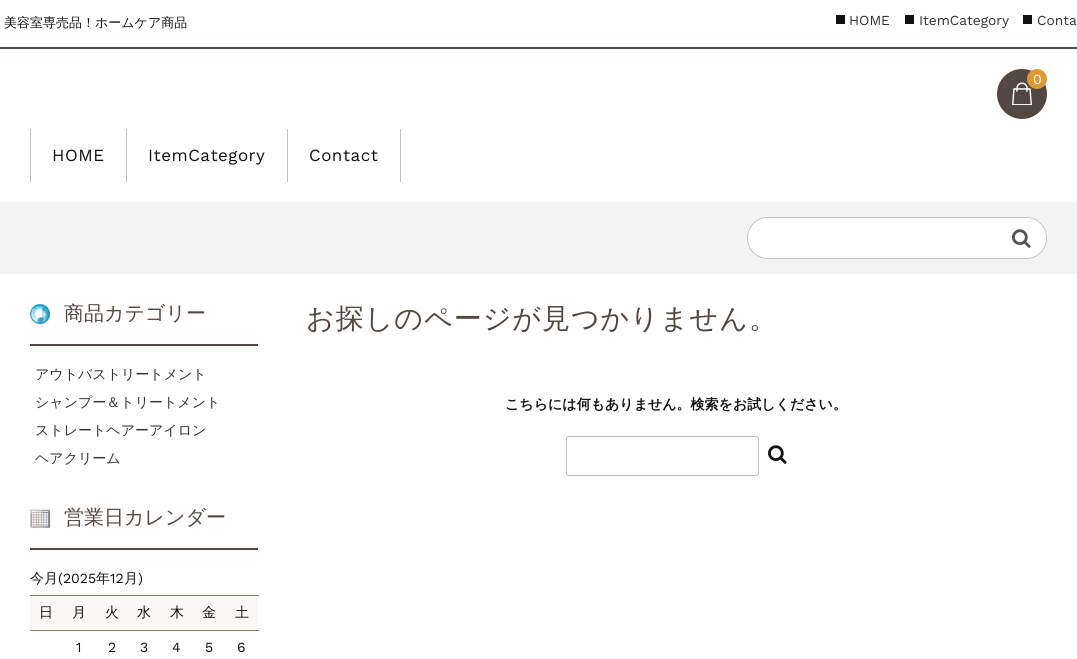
import math
import cairo

surface = cairo.ImageSurface(cairo.FORMAT_RGB24, 1077, 659)
cr = cairo.Context(surface)
options = cairo.FontOptions()
options.set_hint_metrics(cairo.HINT_METRICS_OFF)
options.set_hint_style(cairo.HINT_STYLE_NONE)
cr.set_font_options(options)
cr.set_miter_limit(4)


def rgb(code):
    cr.set_source_rgb(*(v / 255 for v in bytes.fromhex(code[-6:])))


def tracked(x, y, s, letter, word):
    cr.move_to(x, y)
    for ch in s:
        cr.show_text(ch)
        cr.rel_move_to(letter + word * (ch == ' '), 0)


def rrect(x, y, w, h, r):
    cr.new_sub_path()
    for i, (u, v) in enumerate([(x + w - r, y + h - r), (x + r, y + h - r), (x + r, y + r), (x + w - r, y + r)]):
        cr.arc(u, v, r, i * math.pi / 2, (i + 1) * math.pi / 2)
    cr.close_path()


def image(path, x, y, w, h):
    cr.save()
    cr.set_source_surface(cairo.ImageSurface.create_from_png(path), x, y)
    cr.rectangle(x, y, w, h)
    cr.fill()
    cr.restore()


rgb("#ffffff")
cr.paint()
for x, y, w, h, color in [
    (0, 47, 1077, 2, "#534741"),
    (836, 15, 9, 9, "#111111"),
    (905, 15, 9, 9, "#111111"),
    (1023, 15, 9, 9, "#111111"),
    (126, 129, 1, 53, "#c1c1c4"),
    (30, 129, 1, 53, "#c1c1c4"),
    (287, 129, 1, 53, "#c1c1c4"),
    (400, 129, 1, 53, "#c1c1c4"),
]:
    rgb(color)
    cr.rectangle(x, y, w, h)
    cr.fill()
rgb("#534741")
cr.arc(1022, 94, 25, 0, 2 * math.pi)
cr.fill()
image("img/1.png", 1012, 82, 20, 23)
rgb("#dd9933")
cr.arc(1037, 79, 10, 0, 2 * math.pi)
cr.fill()
rgb("#f3f3f3")
cr.rectangle(0, 202, 1077, 72)
cr.fill()
rrect(747.5, 217.5, 299, 41, 20.5)
rgb("#c1c1c4")
cr.set_line_width(1)
cr.stroke()
rgb("#ffffff")
rrect(748, 218, 298, 40, 20)
cr.fill()
image("img/2.png", 1012, 229, 19, 19)
rgb("#534741")
cr.rectangle(30, 344, 228, 2)
cr.fill()
image("img/3.png", 30, 304, 20, 20)
cr.rectangle(30, 548, 228, 2)
cr.fill()
image("img/4.png", 30, 509, 20, 19)
for x, y, w, h, color in [
    (30, 596, 228, 34, "#fbf8f5"),
    (30, 595, 229, 1, "#937a64"),
    (30, 630, 229, 1, "#937a64"),
]:
    rgb(color)
    cr.rectangle(x, y, w, h)
    cr.fill()
rrect(566.5, 436.5, 192, 39, 2.5)
rgb("#c1c1c4")
cr.stroke()
image("img/5.png", 768, 445, 19, 19)
cr.select_font_face("WenQuanYi Zen Hei Medium")
cr.set_font_size(13)
rgb("#111111")
cr.move_to(4, 27)
cr.show_text("美容室専売品！ホームケア商品")
cr.select_font_face("Work Sans")
cr.set_font_size(13.75)
rgb("#333333")
for x, y, s in [
    (849, 25, "HOME"),
    (919, 25, "ItemCategory"),
    (1037, 25, "Conta"),
]:
    cr.move_to(x, y)
    cr.show_text(s)
cr.set_font_size(17)
rgb("#111111")
for x, y, s in [
    (52, 161, "HOME"),
    (148, 161, "ItemCategory"),
    (309, 161, "Contact"),
]:
    tracked(x, y, s, 0.5, 0)
cr.set_font_size(14)
rgb("#ffffff")
cr.move_to(1033, 84)
cr.show_text("0")
cr.select_font_face("WenQuanYi Zen Hei Medium")
cr.set_font_size(20)
rgb("#534741")
cr.move_to(64, 320)
cr.show_text("商品カテゴリー")
cr.set_font_size(14)
rgb("#333333")
for x, y, s in [
    (35, 379, "アウトバストリートメント"),
    (35, 407, "シャンプー＆トリートメント"),
    (35, 435, "ストレートヘアーアイロン"),
    (35, 463, "ヘアクリーム"),
]:
    cr.move_to(x, y)
    cr.show_text(s)
cr.set_font_size(20)
rgb("#534741")
cr.move_to(64, 524)
cr.show_text("営業日カレンダー")
cr.set_font_size(14)
rgb("#111111")
cr.move_to(30, 583)
cr.show_text("今月")
cr.select_font_face("Work Sans")
cr.move_to(58, 583)
cr.show_text("(2025")
cr.select_font_face("WenQuanYi Zen Hei Medium")
cr.move_to(96, 583)
cr.show_text("年")
cr.select_font_face("Work Sans")
cr.move_to(110, 583)
cr.show_text("12")
cr.select_font_face("WenQuanYi Zen Hei Medium")
cr.move_to(124, 583)
cr.show_text("月")
cr.select_font_face("Work Sans")
cr.move_to(138, 583)
cr.show_text(")")
cr.select_font_face("WenQuanYi Zen Hei Medium")
for x, y, s in [
    (39, 617, "日"),
    (72, 617, "月"),
    (105, 617, "火"),
    (137, 617, "水"),
    (170, 617, "木"),
    (202, 617, "金"),
    (235, 617, "土"),
]:
    cr.move_to(x, y)
    cr.show_text(s)
cr.select_font_face("Work Sans")
for x, y, s in [
    (76, 652, "1"),
    (108, 652, "2"),
    (140, 652, "3"),
    (172, 652, "4"),
    (205, 652, "5"),
    (237, 652, "6"),
]:
    cr.move_to(x, y)
    cr.show_text(s)
cr.select_font_face("WenQuanYi Zen Hei Medium")
cr.set_font_size(28)
rgb("#534741")
tracked(306, 328, "お探しのページが見つかりません。", 1, 0)
cr.select_font_face("WenQuanYi Zen Hei", cairo.FONT_SLANT_NORMAL, cairo.FONT_WEIGHT_BOLD)
cr.set_font_size(14)
rgb("#111111")
cr.move_to(505, 409)
cr.show_text("こちらには何もありません。検索をお試しください。")
surface.write_to_png("page.png")
